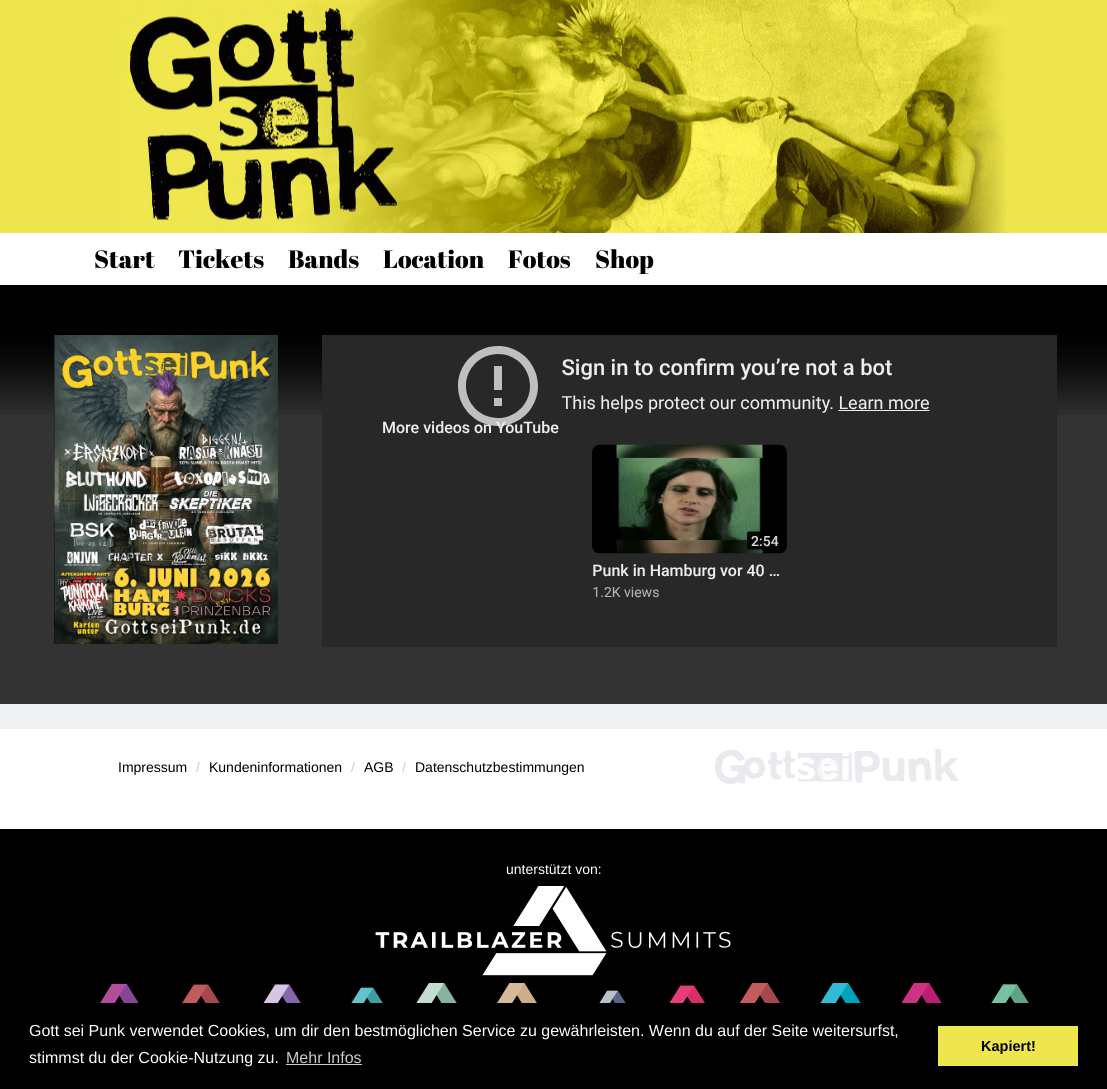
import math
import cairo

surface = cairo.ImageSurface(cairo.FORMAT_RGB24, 1107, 1089)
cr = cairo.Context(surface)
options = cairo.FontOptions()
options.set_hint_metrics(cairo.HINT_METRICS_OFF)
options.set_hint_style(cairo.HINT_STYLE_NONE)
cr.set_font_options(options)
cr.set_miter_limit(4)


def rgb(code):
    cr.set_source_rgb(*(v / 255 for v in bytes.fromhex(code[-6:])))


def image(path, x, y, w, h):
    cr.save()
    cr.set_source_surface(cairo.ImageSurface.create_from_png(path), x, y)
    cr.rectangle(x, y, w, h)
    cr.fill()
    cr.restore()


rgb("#ffffff")
cr.paint()
rgb("#efe64d")
cr.rectangle(0, 0, 1107, 233)
cr.fill()
image("img/1.png", 124, 0, 883, 233)
rgb("#eff0f2")
cr.rectangle(0, 704, 1107, 25)
cr.fill()
rgb("#333333")
cr.rectangle(0, 415, 1107, 289)
cr.fill()
image("img/2.png", 0, 285, 1107, 130)
image("img/3.png", 54, 335, 224, 309)
image("img/4.png", 322, 335, 735, 312)
image("img/5.png", 715, 749, 243, 35)
rgb("#000000")
cr.rectangle(0, 829, 1107, 260)
cr.fill()
image("img/6.png", 375, 886, 356, 90)
image("img/7.png", 100, 983, 39, 20)
image("img/8.png", 182, 984, 38, 19)
image("img/9.png", 263, 984, 38, 19)
image("img/10.png", 351, 987, 32, 16)
image("img/11.png", 416, 983, 41, 20)
image("img/12.png", 497, 983, 40, 20)
image("img/13.png", 599, 990, 27, 13)
image("img/14.png", 669, 985, 36, 18)
image("img/15.png", 739, 983, 41, 20)
image("img/16.png", 820, 983, 41, 20)
image("img/17.png", 901, 983, 41, 20)
image("img/18.png", 991, 984, 38, 19)
rgb("#cccccc")
cr.rectangle(286, 1064, 76, 1)
cr.fill()
rgb("#efe64d")
cr.rectangle(938, 1026, 140, 40)
cr.fill()
cr.select_font_face("Abril Fatface")
cr.set_font_size(25)
rgb("#000000")
for x, y, s in [
    (94, 268, "Start"),
    (178, 268, "Tickets"),
    (288, 268, "Bands"),
    (383, 268, "Location"),
    (508, 268, "Fotos"),
    (595, 268, "Shop"),
]:
    cr.move_to(x, y)
    cr.show_text(s)
cr.select_font_face("Liberation Sans")
cr.set_font_size(14)
cr.move_to(118, 772)
cr.show_text("Impressum")
rgb("#cccccc")
cr.move_to(196, 772)
cr.show_text("/")
rgb("#000000")
cr.move_to(209, 772)
cr.show_text("Kundeninformationen")
rgb("#cccccc")
cr.move_to(351, 772)
cr.show_text("/")
rgb("#000000")
cr.move_to(364, 772)
cr.show_text("AGB")
rgb("#cccccc")
cr.move_to(402, 772)
cr.show_text("/")
rgb("#000000")
cr.move_to(415, 772)
cr.show_text("Datenschutzbestimmungen")
rgb("#ffffff")
cr.move_to(506, 874)
cr.show_text("unterstützt von:")
cr.set_font_size(16)
cr.move_to(29, 1036)
cr.show_text("Gott sei Punk verwendet Cookies, um dir den bestmöglichen Service zu gewährleisten. Wenn du auf der Seite weitersurfst,")
cr.move_to(29, 1063)
cr.show_text("stimmst du der Cookie-Nutzung zu.")
rgb("#cccccc")
cr.move_to(286, 1063)
cr.show_text("Mehr Infos")
cr.select_font_face("Liberation Sans", cairo.FONT_SLANT_NORMAL, cairo.FONT_WEIGHT_BOLD)
cr.set_font_size(14.5)
rgb("#000000")
cr.move_to(981, 1051)
cr.show_text("Kapiert!")
surface.write_to_png("page.png")
